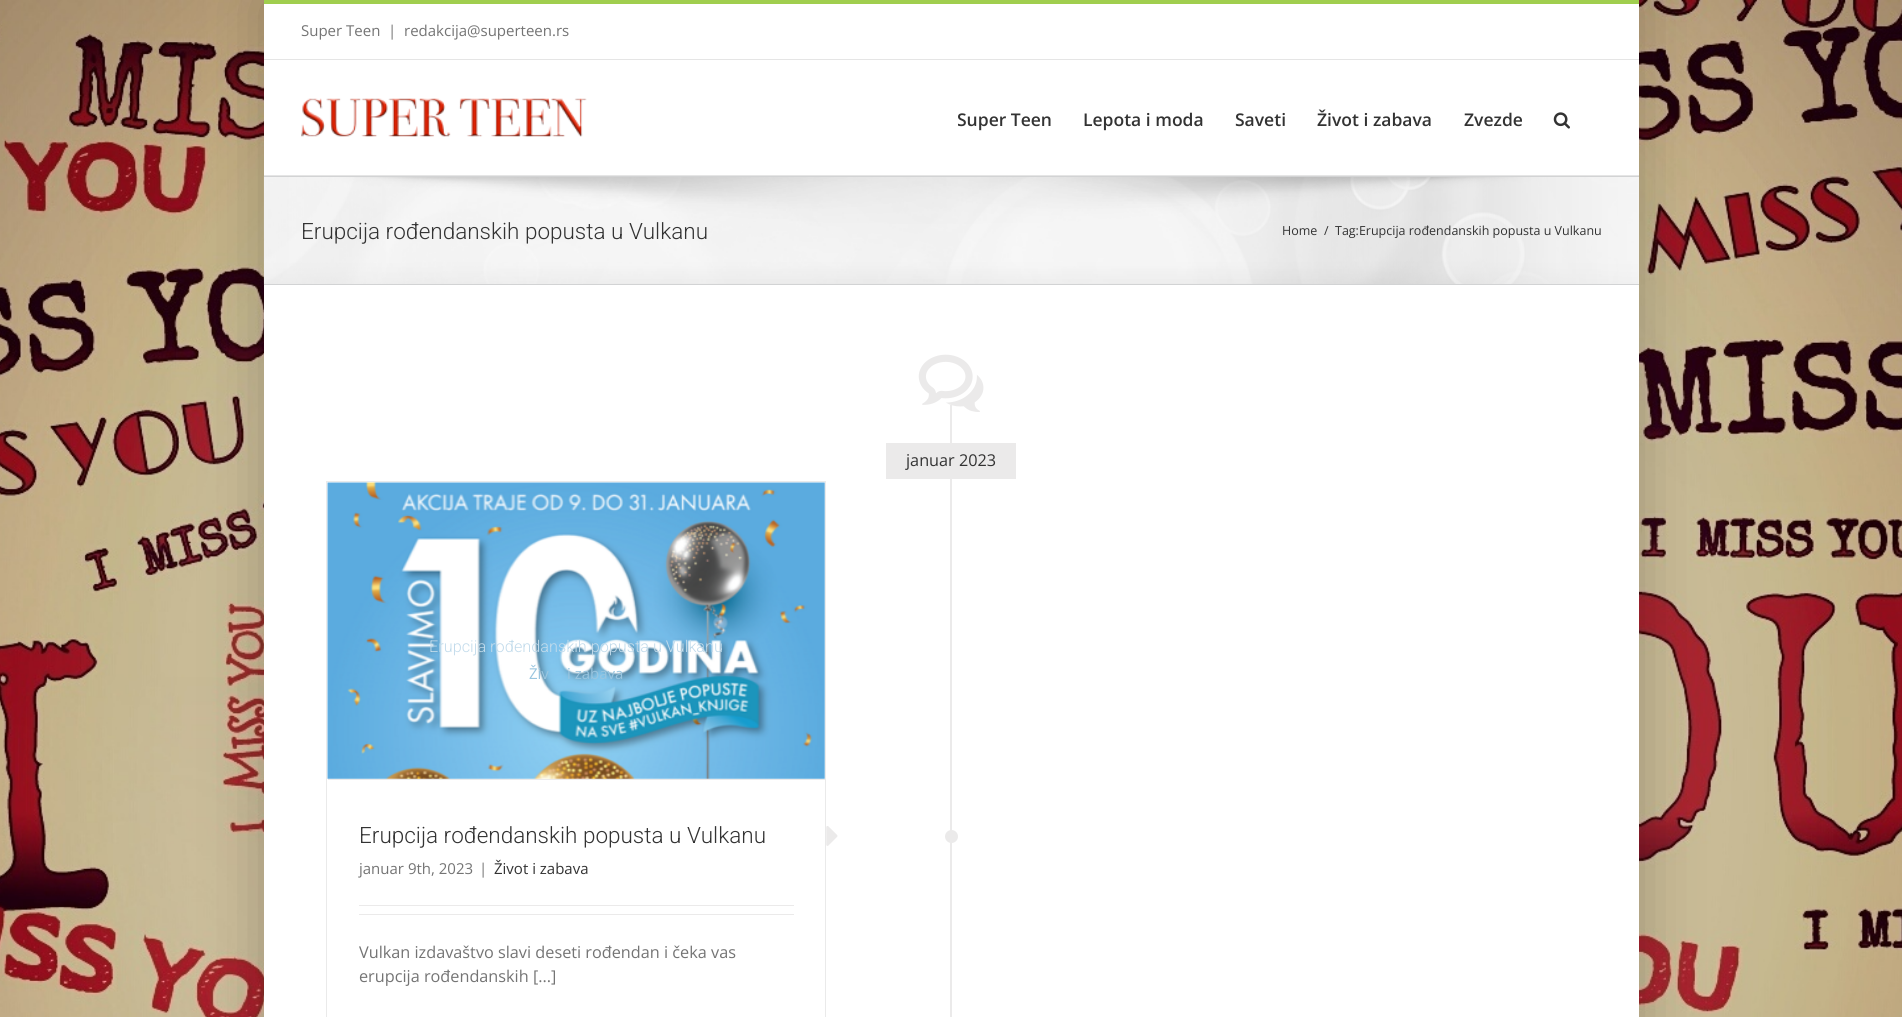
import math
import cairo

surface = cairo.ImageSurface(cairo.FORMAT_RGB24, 1902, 1017)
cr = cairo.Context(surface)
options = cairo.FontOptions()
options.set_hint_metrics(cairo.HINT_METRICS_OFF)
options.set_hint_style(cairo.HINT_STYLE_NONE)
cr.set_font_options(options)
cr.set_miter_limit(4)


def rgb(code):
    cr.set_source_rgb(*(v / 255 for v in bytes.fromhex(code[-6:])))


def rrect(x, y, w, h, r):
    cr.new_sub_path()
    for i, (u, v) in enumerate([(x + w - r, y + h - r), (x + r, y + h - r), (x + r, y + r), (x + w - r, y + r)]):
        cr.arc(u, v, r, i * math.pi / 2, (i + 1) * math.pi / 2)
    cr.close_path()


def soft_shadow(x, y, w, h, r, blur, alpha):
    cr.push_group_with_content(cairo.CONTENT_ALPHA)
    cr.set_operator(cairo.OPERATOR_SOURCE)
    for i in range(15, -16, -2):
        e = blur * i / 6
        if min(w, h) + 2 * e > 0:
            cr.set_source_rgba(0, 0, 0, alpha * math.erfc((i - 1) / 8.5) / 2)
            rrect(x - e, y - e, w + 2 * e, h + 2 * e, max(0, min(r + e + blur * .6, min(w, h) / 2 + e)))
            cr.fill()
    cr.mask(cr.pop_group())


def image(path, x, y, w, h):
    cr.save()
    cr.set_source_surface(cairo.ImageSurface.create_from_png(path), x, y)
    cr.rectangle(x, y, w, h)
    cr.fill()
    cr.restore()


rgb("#ffffff")
cr.paint()
image("img/1.png", 0, 0, 1902, 1017)
rgb("#000000")
soft_shadow(263, -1, 1377, 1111, 0, 31, 0.22)
for x, y, w, h, color in [
    (264, 4, 1375, 55, "#ffffff"),
    (264, 0, 1375, 4, "#a0ce4e"),
    (264, 59, 1375, 1, "#e5e5e5"),
    (264, 60, 1375, 115, "#ffffff"),
    (264, 175, 1375, 1, "#e5e5e5"),
]:
    rgb(color)
    cr.rectangle(x, y, w, h)
    cr.fill()
image("img/2.png", 301, 98, 286, 39)
image("img/3.png", 1553, 112, 17, 17)
rgb("#f6f6f6")
cr.rectangle(264, 177, 1375, 107)
cr.fill()
image("img/4.png", 263, 176, 1375, 109)
for x, y, w, h, color in [
    (264, 176, 1375, 1, "#d2d3d4"),
    (264, 284, 1375, 1, "#d2d3d4"),
    (264, 285, 1375, 732, "#ffffff"),
]:
    rgb(color)
    cr.rectangle(x, y, w, h)
    cr.fill()
image("img/5.png", 918, 354, 66, 58)
for x, y, w, h, color in [
    (950, 405, 2, 612, "#ebeaea"),
    (886, 443, 130, 36, "#ebeaea"),
    (326, 481, 500, 1, "#eaeaea"),
    (825, 481, 1, 536, "#eaeaea"),
    (326, 481, 1, 536, "#eaeaea"),
    (328, 779, 497, 1, "#ebeaea"),
]:
    rgb(color)
    cr.rectangle(x, y, w, h)
    cr.fill()
image("img/6.png", 327, 482, 498, 297)
cr.rectangle(359, 905, 435, 1)
cr.fill()
cr.rectangle(359, 914, 435, 1)
cr.fill()
image("img/7.png", 826, 826, 12, 20)
cr.arc(951.5, 836.5, 6.5, 0, 2 * math.pi)
cr.fill()
cr.select_font_face("Open Sans")
cr.set_font_size(15)
rgb("#747474")
for x, y, s in [
    (301, 36, "Super Teen"),
    (388, 36, "|"),
    (404, 36, "redakcija@superteen.rs"),
]:
    cr.move_to(x, y)
    cr.show_text(s)
cr.save()
cr.rectangle(958, 60, 643, 115)
cr.clip()
cr.select_font_face("Open Sans SemiBold")
cr.set_font_size(17.5)
rgb("#333333")
cr.move_to(957, 126)
cr.show_text("Super Teen")
cr.restore()
cr.select_font_face("Open Sans SemiBold")
cr.set_font_size(17.5)
rgb("#333333")
for x, y, s in [
    (1083, 126, "Lepota i moda"),
    (1235, 126, "Saveti"),
    (1317, 126, "Život i zabava"),
    (1464, 126, "Zvezde"),
]:
    cr.move_to(x, y)
    cr.show_text(s)
cr.select_font_face("Roboto Light")
cr.set_font_size(22.5)
cr.move_to(301, 239)
cr.show_text("Erupcija rođendanskih popusta u Vulkanu")
cr.select_font_face("Open Sans")
cr.set_font_size(12.5)
for x, y, s in [
    (1282, 235, "Home"),
    (1324, 235, "/"),
    (1335, 235, "Tag:Erupcija rođendanskih popusta u Vulkanu"),
]:
    cr.move_to(x, y)
    cr.show_text(s)
cr.set_font_size(16.25)
cr.move_to(906, 466)
cr.show_text("januar 2023")
cr.select_font_face("Roboto Light")
rgb("#c2dbeb")
cr.move_to(429, 652)
cr.show_text("Erupcija rođendanskih popusta u Vulkanu")
cr.select_font_face("Open Sans")
cr.set_font_size(15)
rgb("#99c5df")
cr.move_to(529, 679)
cr.show_text("Živ")
cr.move_to(567, 679)
cr.show_text("i zabava")
cr.select_font_face("Roboto Light")
cr.set_font_size(22.5)
rgb("#333333")
cr.move_to(359, 843)
cr.show_text("Erupcija rođendanskih popusta u Vulkanu")
cr.select_font_face("Open Sans")
cr.set_font_size(15)
rgb("#747474")
cr.move_to(359, 874)
cr.show_text("januar 9th, 2023")
cr.move_to(479, 874)
cr.show_text("|")
rgb("#333333")
cr.move_to(494, 874)
cr.show_text("Život i zabava")
cr.set_font_size(16.25)
rgb("#747474")
cr.move_to(359, 958)
cr.show_text("Vulkan izdavaštvo slavi deseti rođendan i čeka vas")
cr.move_to(359, 982)
cr.show_text("erupcija rođendanskih [...]")
surface.write_to_png("page.png")
